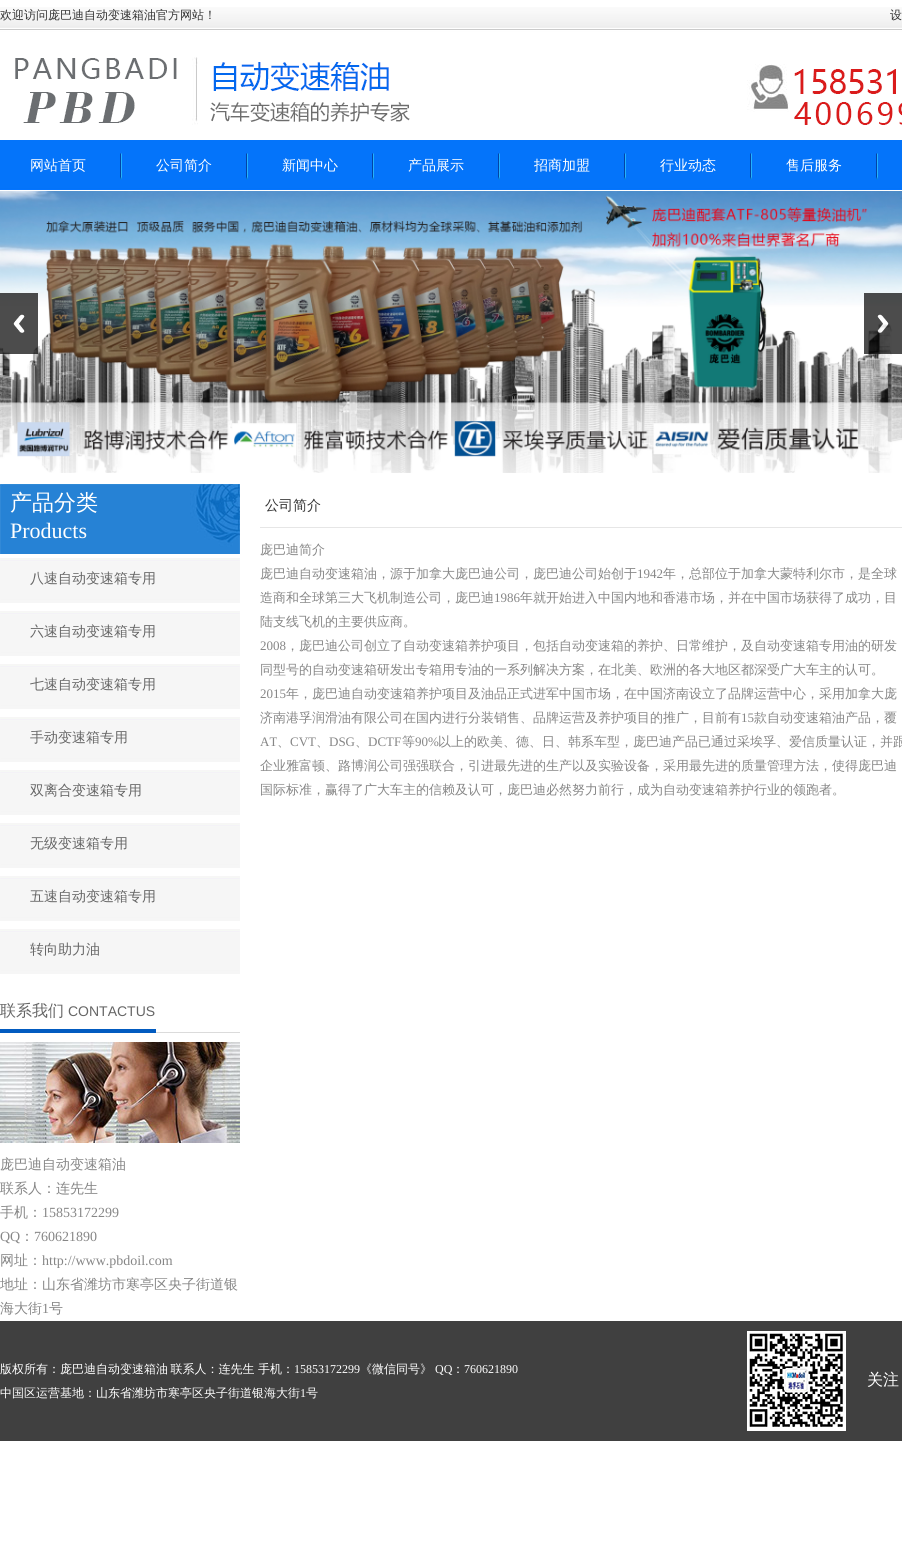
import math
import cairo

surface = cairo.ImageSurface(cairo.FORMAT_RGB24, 902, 1550)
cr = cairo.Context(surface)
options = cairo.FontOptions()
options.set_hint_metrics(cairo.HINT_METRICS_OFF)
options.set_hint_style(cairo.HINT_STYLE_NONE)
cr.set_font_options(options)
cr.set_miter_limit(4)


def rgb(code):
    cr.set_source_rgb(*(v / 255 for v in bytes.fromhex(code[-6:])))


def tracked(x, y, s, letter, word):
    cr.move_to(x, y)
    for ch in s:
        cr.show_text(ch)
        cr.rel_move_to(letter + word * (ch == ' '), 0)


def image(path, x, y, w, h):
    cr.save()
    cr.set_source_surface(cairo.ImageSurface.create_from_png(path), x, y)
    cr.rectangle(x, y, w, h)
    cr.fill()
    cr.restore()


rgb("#ffffff")
cr.paint()
image("img/1.png", 0, 7, 902, 183)
image("img/2.png", 15, 57, 395, 68)
image("img/3.png", 747, 64, 155, 61)
image("img/4.png", 120, 153, 2, 27)
image("img/4.png", 246, 153, 2, 27)
image("img/4.png", 372, 153, 2, 27)
image("img/4.png", 498, 153, 2, 27)
image("img/4.png", 624, 153, 2, 27)
image("img/4.png", 750, 153, 2, 27)
image("img/4.png", 876, 153, 2, 27)
image("img/5.png", 0, 191, 902, 282)
image("img/6.png", 0, 293, 38, 61)
image("img/7.png", 864, 293, 38, 61)
image("img/8.png", 0, 484, 240, 70)
image("img/9.png", 0, 558, 240, 45)
image("img/9.png", 0, 611, 240, 45)
image("img/9.png", 0, 664, 240, 45)
image("img/9.png", 0, 717, 240, 45)
image("img/9.png", 0, 770, 240, 45)
image("img/9.png", 0, 823, 240, 45)
image("img/9.png", 0, 876, 240, 45)
image("img/9.png", 0, 929, 240, 45)
rgb("#dbdbdb")
cr.rectangle(156, 1032, 84, 1)
cr.fill()
rgb("#025bc0")
cr.rectangle(0, 1029, 156, 4)
cr.fill()
image("img/10.png", 0, 1042, 240, 101)
rgb("#e6e6e6")
cr.rectangle(260, 527, 642, 1)
cr.fill()
rgb("#404040")
cr.rectangle(0, 1321, 902, 120)
cr.fill()
image("img/11.png", 747, 1331, 99, 100)
cr.select_font_face("WenQuanYi Zen Hei Medium")
cr.set_font_size(12)
rgb("#333333")
cr.move_to(0, 19)
cr.show_text("欢迎访问庞巴迪自动变速箱油官方网站！")
cr.move_to(890, 19)
cr.show_text("设")
cr.set_font_size(14)
rgb("#ffffff")
for x, y, s in [
    (30, 170, "网站首页"),
    (156, 170, "公司简介"),
    (282, 170, "新闻中心"),
    (408, 170, "产品展示"),
    (534, 170, "招商加盟"),
    (660, 170, "行业动态"),
    (786, 170, "售后服务"),
]:
    cr.move_to(x, y)
    cr.show_text(s)
cr.set_font_size(22)
cr.move_to(10, 510)
cr.show_text("产品分类")
cr.select_font_face("Liberation Serif")
cr.move_to(10, 538)
cr.show_text("Products")
cr.select_font_face("WenQuanYi Zen Hei Medium")
cr.set_font_size(14)
rgb("#666666")
for x, y, s in [
    (30, 583, "八速自动变速箱专用"),
    (30, 636, "六速自动变速箱专用"),
    (30, 689, "七速自动变速箱专用"),
    (30, 742, "手动变速箱专用"),
    (30, 795, "双离合变速箱专用"),
    (30, 848, "无级变速箱专用"),
    (30, 901, "五速自动变速箱专用"),
    (30, 954, "转向助力油"),
]:
    cr.move_to(x, y)
    cr.show_text(s)
cr.set_font_size(16)
cr.move_to(0, 1016)
cr.show_text("联系我们")
cr.select_font_face("Liberation Sans")
cr.set_font_size(14)
cr.move_to(68, 1016)
cr.show_text("CONTACTUS")
cr.select_font_face("WenQuanYi Zen Hei Medium")
rgb("#868686")
for x, y, s in [
    (0, 1169, "庞巴迪自动变速箱油"),
    (0, 1193, "联系人：连先生"),
    (0, 1217, "手机："),
]:
    cr.move_to(x, y)
    cr.show_text(s)
cr.select_font_face("Liberation Serif")
cr.move_to(42, 1217)
cr.show_text("15853172299")
cr.move_to(0, 1241)
cr.show_text("QQ")
cr.select_font_face("WenQuanYi Zen Hei Medium")
cr.move_to(20, 1241)
cr.show_text("：")
cr.select_font_face("Liberation Serif")
cr.move_to(34, 1241)
cr.show_text("760621890")
cr.select_font_face("WenQuanYi Zen Hei Medium")
cr.move_to(0, 1265)
cr.show_text("网址：")
cr.select_font_face("Liberation Serif")
cr.move_to(42, 1265)
cr.show_text("http://www.pbdoil.com")
cr.select_font_face("WenQuanYi Zen Hei Medium")
cr.move_to(0, 1289)
cr.show_text("地址：山东省潍坊市寒亭区央子街道银")
cr.move_to(0, 1313)
cr.show_text("海大街")
cr.select_font_face("Liberation Serif")
cr.move_to(42, 1313)
cr.show_text("1")
cr.select_font_face("WenQuanYi Zen Hei Medium")
cr.move_to(49, 1313)
cr.show_text("号")
rgb("#333333")
cr.move_to(265, 510)
cr.show_text("公司简介")
cr.set_font_size(13)
rgb("#868686")
cr.move_to(260, 554)
cr.show_text("庞巴迪简介")
cr.move_to(260, 578)
cr.show_text("庞巴迪自动变速箱油，源于加拿大庞巴迪公司，庞巴迪公司始创于")
cr.select_font_face("Liberation Serif")
cr.move_to(637, 578)
cr.show_text("1942")
cr.select_font_face("WenQuanYi Zen Hei Medium")
cr.move_to(663, 578)
cr.show_text("年，总部位于加拿大蒙特利尔市，是全球")
cr.move_to(260, 602)
cr.show_text("造商和全球第三大飞机制造公司，庞巴迪")
cr.select_font_face("Liberation Serif")
cr.move_to(494, 602)
cr.show_text("1986")
cr.select_font_face("WenQuanYi Zen Hei Medium")
cr.move_to(520, 602)
cr.show_text("年就开始进入中国内地和香港市场，并在中国市场获得了成功，目")
cr.move_to(260, 626)
cr.show_text("陆支线飞机的主要供应商。")
cr.select_font_face("Liberation Serif")
cr.move_to(260, 650)
cr.show_text("2008")
cr.select_font_face("WenQuanYi Zen Hei Medium")
cr.move_to(286, 650)
cr.show_text("，庞巴迪公司创立了自动变速箱养护项目，包括自动变速箱的养护、日常维护，及自动变速箱专用油的研发")
cr.move_to(260, 674)
cr.show_text("同型号的自动变速箱研发出专箱用专油的一系列解决方案，在北美、欧洲的各大地区都深受广大车主的认可。")
cr.select_font_face("Liberation Serif")
cr.move_to(260, 698)
cr.show_text("2015")
cr.select_font_face("WenQuanYi Zen Hei Medium")
cr.move_to(286, 698)
cr.show_text("年，庞巴迪自动变速箱养护项目及油品正式进军中国市场，在中国济南设立了品牌运营中心，采用加拿大庞")
cr.move_to(260, 722)
cr.show_text("济南港孚润滑油有限公司在国内进行分装销售、品牌运营及养护项目的推广，目前有")
cr.select_font_face("Liberation Serif")
cr.move_to(741, 722)
cr.show_text("15")
cr.select_font_face("WenQuanYi Zen Hei Medium")
cr.move_to(754, 722)
cr.show_text("款自动变速箱油产品，覆")
cr.select_font_face("Liberation Serif")
cr.move_to(260, 746)
cr.show_text("AT")
cr.select_font_face("WenQuanYi Zen Hei Medium")
cr.move_to(277, 746)
cr.show_text("、")
cr.select_font_face("Liberation Serif")
cr.move_to(290, 746)
cr.show_text("CVT")
cr.select_font_face("WenQuanYi Zen Hei Medium")
cr.move_to(316, 746)
cr.show_text("、")
cr.select_font_face("Liberation Serif")
cr.move_to(329, 746)
cr.show_text("DSG")
cr.select_font_face("WenQuanYi Zen Hei Medium")
cr.move_to(355, 746)
cr.show_text("、")
cr.select_font_face("Liberation Serif")
cr.move_to(368, 746)
cr.show_text("DCTF")
cr.select_font_face("WenQuanYi Zen Hei Medium")
cr.move_to(402, 746)
cr.show_text("等")
cr.select_font_face("Liberation Serif")
cr.move_to(415, 746)
cr.show_text("90%")
cr.select_font_face("WenQuanYi Zen Hei Medium")
for x, y, s in [
    (438, 746, "以上的欧美、德、日、韩系车型，庞巴迪产品已通过采埃孚、爱信质量认证，并跟"),
    (260, 770, "企业雅富顿、路博润公司强强联合，引进最先进的生产以及实验设备，采用最先进的质量管理方法，使得庞巴迪"),
    (260, 794, "国际标准，赢得了广大车主的信赖及认可，庞巴迪必然努力前行，成为自动变速箱养护行业的领跑者。"),
]:
    cr.move_to(x, y)
    cr.show_text(s)
cr.set_font_size(12)
rgb("#ffffff")
tracked(0, 1373, "版权所有：庞巴迪自动变速箱油 联系人：连先生", 0, -1)
cr.move_to(258, 1373)
cr.show_text("手机：")
cr.select_font_face("Liberation Serif")
cr.move_to(294, 1373)
cr.show_text("15853172299")
cr.select_font_face("WenQuanYi Zen Hei Medium")
cr.move_to(360, 1373)
cr.show_text("《微信同号》")
cr.select_font_face("Liberation Serif")
cr.move_to(435, 1373)
cr.show_text("QQ")
cr.select_font_face("WenQuanYi Zen Hei Medium")
cr.move_to(452, 1373)
cr.show_text("：")
cr.select_font_face("Liberation Serif")
cr.move_to(464, 1373)
cr.show_text("760621890")
cr.select_font_face("WenQuanYi Zen Hei Medium")
cr.move_to(0, 1397)
cr.show_text("中国区运营基地：山东省潍坊市寒亭区央子街道银海大街")
cr.select_font_face("Liberation Serif")
cr.move_to(300, 1397)
cr.show_text("1")
cr.select_font_face("WenQuanYi Zen Hei Medium")
cr.move_to(306, 1397)
cr.show_text("号")
cr.set_font_size(16)
cr.move_to(867, 1385)
cr.show_text("关注")
surface.write_to_png("page.png")
